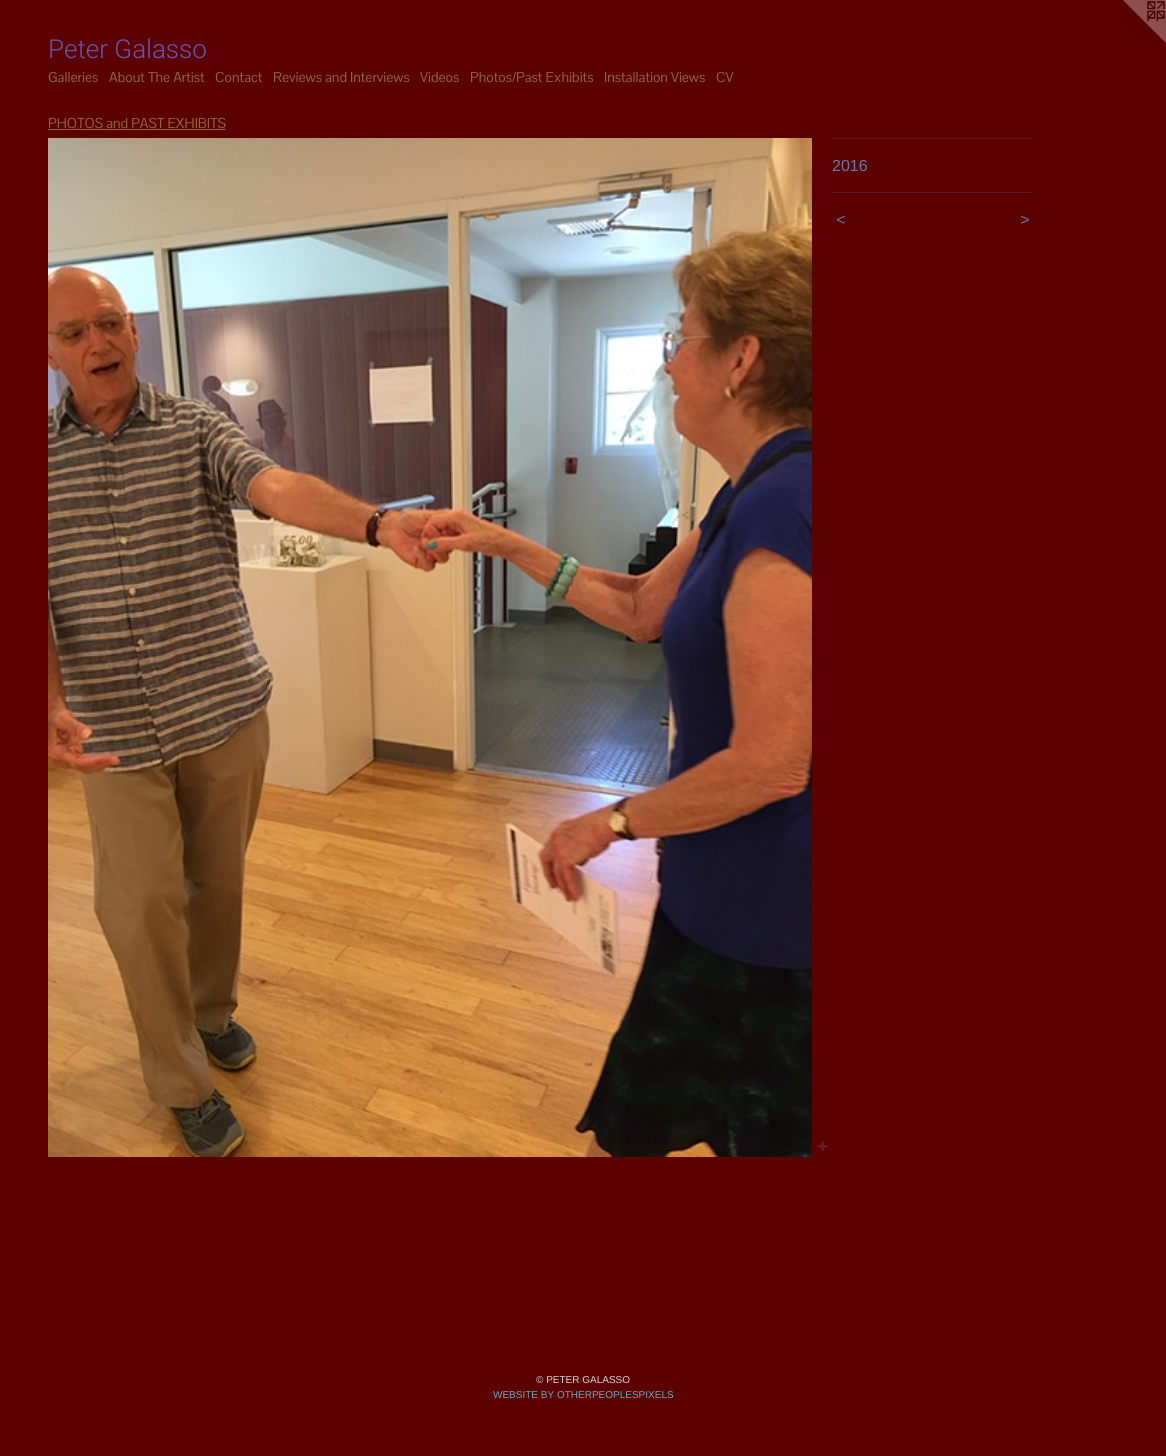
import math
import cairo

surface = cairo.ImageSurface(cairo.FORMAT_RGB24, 1166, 1456)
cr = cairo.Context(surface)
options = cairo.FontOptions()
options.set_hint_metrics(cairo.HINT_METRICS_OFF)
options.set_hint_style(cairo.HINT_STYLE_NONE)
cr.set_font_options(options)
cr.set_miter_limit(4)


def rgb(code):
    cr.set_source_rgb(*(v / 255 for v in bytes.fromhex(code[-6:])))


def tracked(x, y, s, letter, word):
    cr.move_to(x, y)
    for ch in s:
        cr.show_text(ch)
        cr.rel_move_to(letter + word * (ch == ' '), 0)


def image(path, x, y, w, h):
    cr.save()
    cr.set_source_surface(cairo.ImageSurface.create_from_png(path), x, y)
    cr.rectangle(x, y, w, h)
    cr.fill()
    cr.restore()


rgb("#5b0101")
cr.paint()
image("img/1.png", 1123, 0, 43, 43)
rgb("#8f653d")
cr.rectangle(48, 129, 178, 1)
cr.fill()
image("img/2.png", 48, 138, 764, 1019)
image("img/3.png", 818, 1141, 10, 10)
rgb("#5e1922")
cr.rectangle(832, 138, 200, 1)
cr.fill()
cr.rectangle(832, 192, 200, 1)
cr.fill()
cr.select_font_face("Roboto Light")
cr.set_font_size(26)
rgb("#6a55af")
cr.move_to(48, 58)
cr.show_text("Peter Galasso")
cr.select_font_face("Pontano Sans")
cr.set_font_size(14)
rgb("#8f653d")
for x, y, s in [
    (48, 82, "Galleries"),
    (109, 82, "About The Artist"),
    (215, 82, "Contact"),
    (273, 82, "Reviews and Interviews"),
    (420, 82, "Videos"),
    (470, 82, "Photos/Past Exhibits"),
    (604, 82, "Installation Views"),
    (716, 82, "CV"),
    (48, 128, "PHOTOS and PAST EXHIBITS"),
]:
    cr.move_to(x, y)
    cr.show_text(s)
cr.select_font_face("Liberation Sans")
cr.set_font_size(16)
rgb("#6c77a7")
cr.move_to(832, 171)
cr.show_text("2016")
cr.select_font_face("Liberation Sans", cairo.FONT_SLANT_ITALIC)
tracked(836, 225, "<", 1, 0)
tracked(1020, 225, ">", 1, 0)
cr.select_font_face("Liberation Sans")
cr.set_font_size(10)
rgb("#d6d6d6")
cr.move_to(536, 1383)
cr.show_text("© PETER GALASSO")
rgb("#70a8c0")
cr.move_to(493, 1398)
cr.show_text("WEBSITE BY OTHERPEOPLESPIXELS")
surface.write_to_png("page.png")
